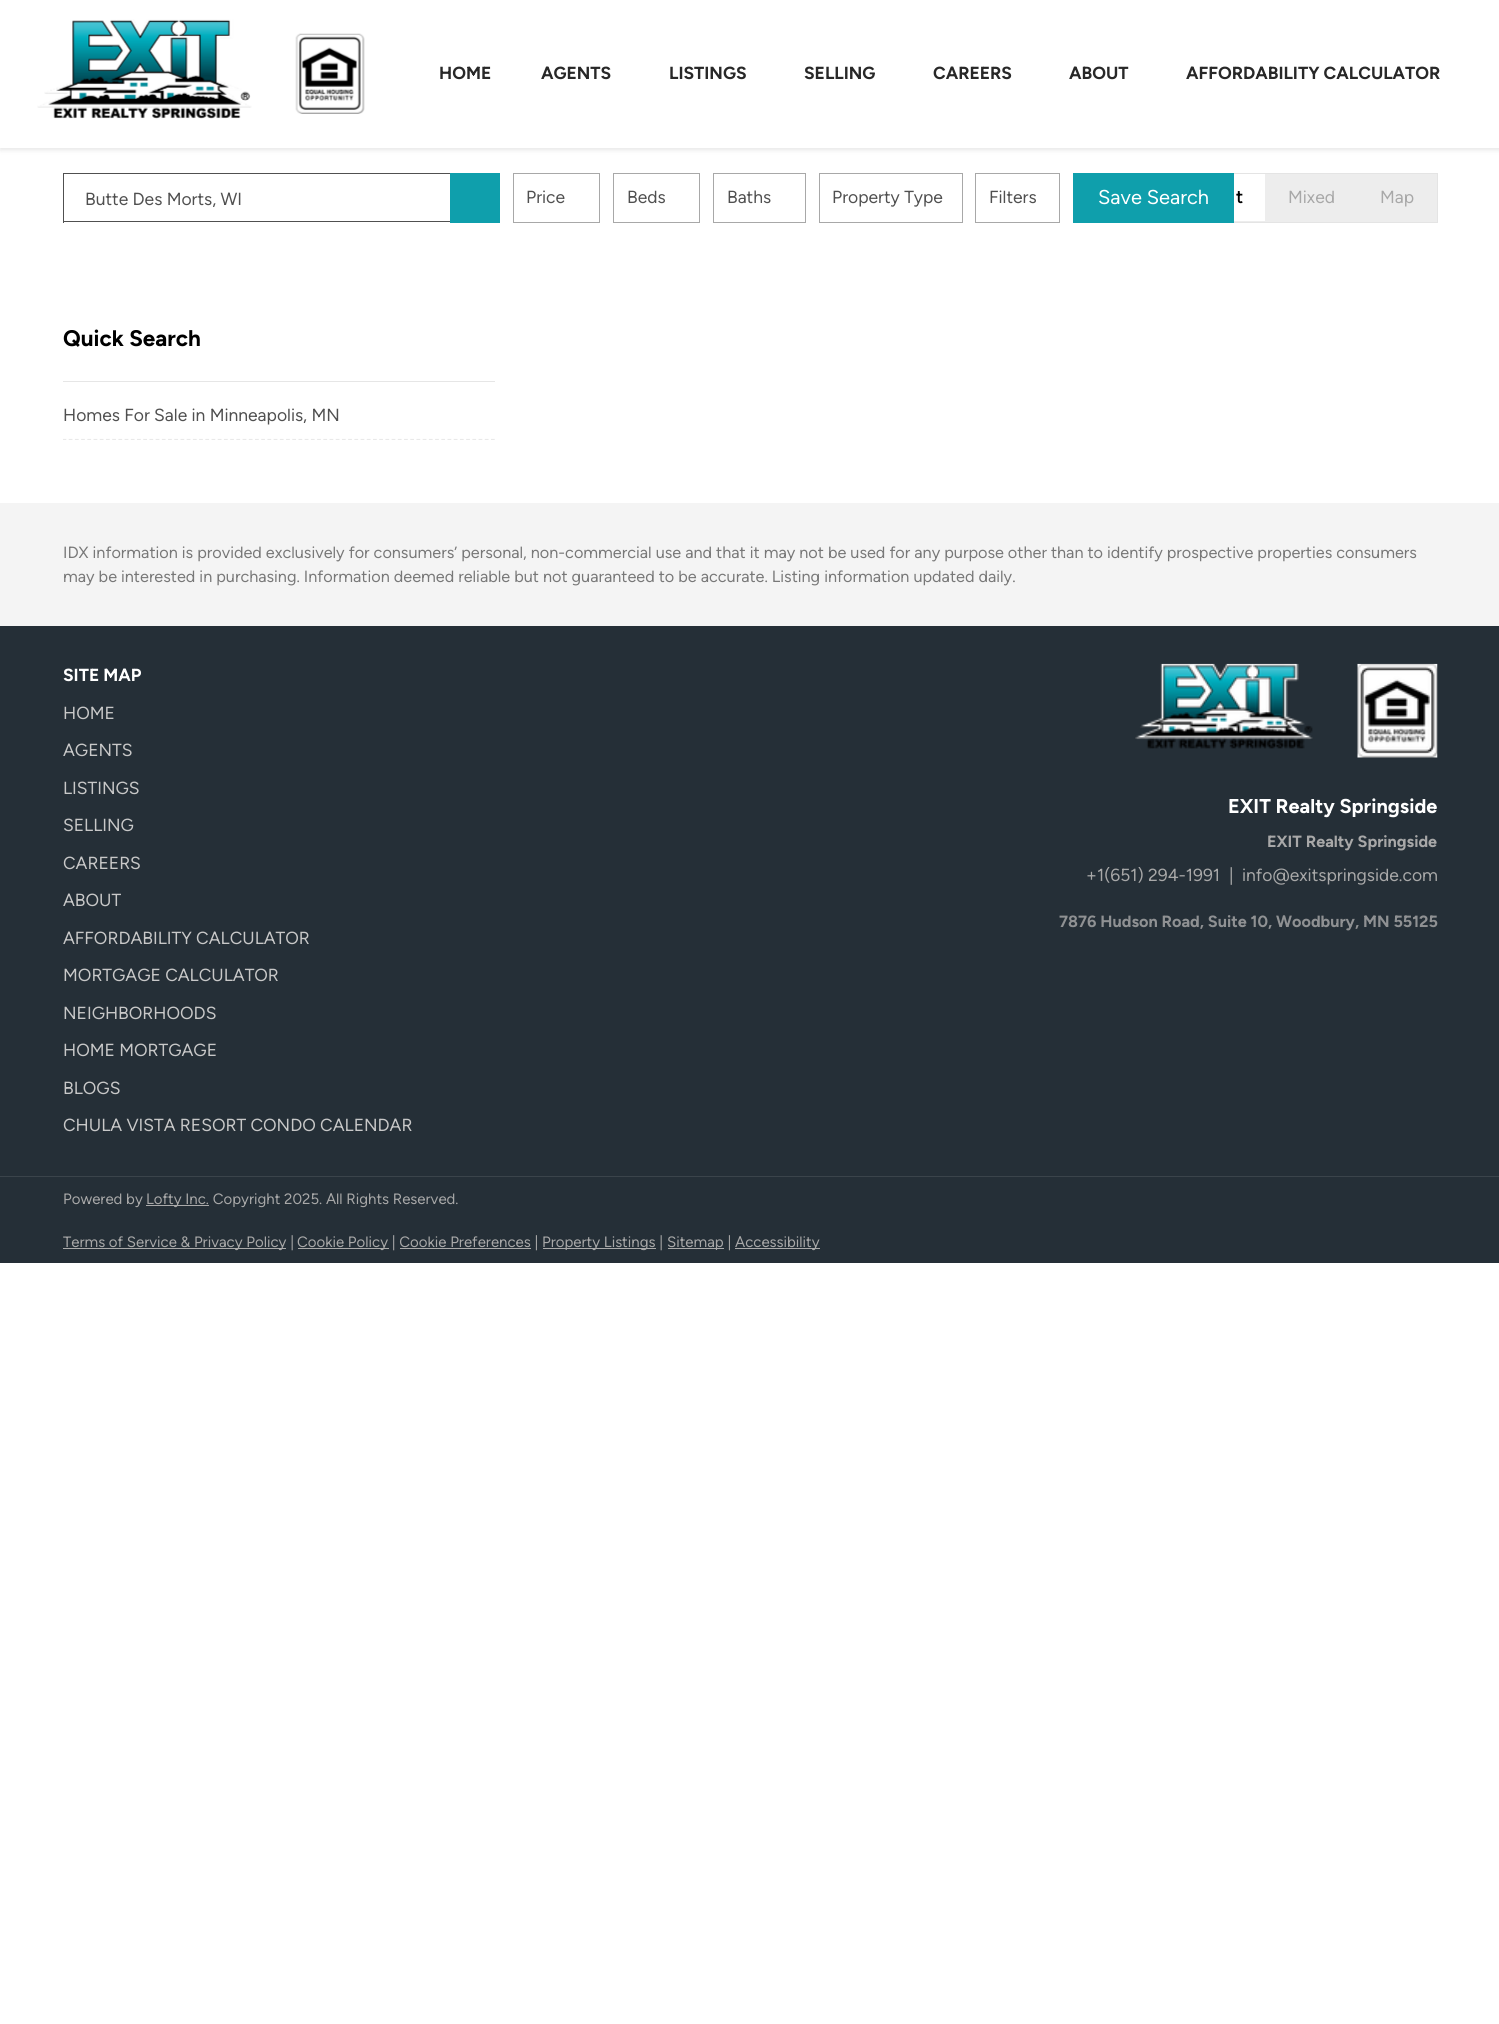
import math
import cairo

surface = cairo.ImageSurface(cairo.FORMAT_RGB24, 1499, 2024)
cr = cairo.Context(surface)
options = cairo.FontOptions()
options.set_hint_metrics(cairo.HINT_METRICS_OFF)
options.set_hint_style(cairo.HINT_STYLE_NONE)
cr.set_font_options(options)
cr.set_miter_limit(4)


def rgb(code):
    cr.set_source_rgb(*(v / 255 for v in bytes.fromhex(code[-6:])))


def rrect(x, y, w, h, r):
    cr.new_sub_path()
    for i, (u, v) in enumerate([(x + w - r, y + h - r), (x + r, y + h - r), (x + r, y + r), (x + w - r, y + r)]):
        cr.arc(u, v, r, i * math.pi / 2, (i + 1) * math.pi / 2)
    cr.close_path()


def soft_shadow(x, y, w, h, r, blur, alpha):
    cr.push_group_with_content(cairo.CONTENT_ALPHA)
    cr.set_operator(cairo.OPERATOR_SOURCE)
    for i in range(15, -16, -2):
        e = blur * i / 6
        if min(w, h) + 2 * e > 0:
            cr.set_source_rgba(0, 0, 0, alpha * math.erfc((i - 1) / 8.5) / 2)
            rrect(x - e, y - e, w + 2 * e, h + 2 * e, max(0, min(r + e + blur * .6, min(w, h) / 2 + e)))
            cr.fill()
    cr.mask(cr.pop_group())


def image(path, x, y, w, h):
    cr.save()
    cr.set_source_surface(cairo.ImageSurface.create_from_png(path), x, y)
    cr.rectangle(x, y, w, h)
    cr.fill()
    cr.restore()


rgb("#ffffff")
cr.paint()
rgb("#000000")
soft_shadow(0, 3, 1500, 147, 0, 2.5, 0.1)
rgb("#ffffff")
cr.rectangle(0, 0, 1499, 148)
cr.fill()
image("img/1.png", 37, 19, 215, 100)
image("img/2.png", 295, 33, 70, 81)
for x, y, w, h, color in [
    (63, 173, 387, 1, "#505050"),
    (63, 221, 387, 1, "#505050"),
    (63, 173, 1, 50, "#505050"),
    (450, 173, 50, 50, "#0f9fac"),
]:
    rgb(color)
    cr.rectangle(x, y, w, h)
    cr.fill()
cr.rectangle(513.5, 173.5, 86, 49)
rgb("#a8a8a8")
cr.set_line_width(1)
cr.stroke()
cr.rectangle(613.5, 173.5, 86, 49)
cr.stroke()
cr.rectangle(713.5, 173.5, 92, 49)
cr.stroke()
cr.rectangle(819.5, 173.5, 143, 49)
cr.stroke()
cr.rectangle(975.5, 173.5, 84, 49)
cr.stroke()
rgb("#ededed")
cr.rectangle(1234, 174, 203, 48)
cr.fill()
cr.rectangle(1191.5, 173.5, 246, 49)
rgb("#e4e4e4")
cr.stroke()
rgb("#0f9fac")
cr.rectangle(1073, 173, 161, 50)
cr.fill()
rgb("#ffffff")
cr.rectangle(1234, 174, 31, 47)
cr.fill()
cr.save()
cr.rectangle(63, 381, 1375, 59)
cr.clip()
cr.new_path()
cr.move_to(62.5, 439.5)
cr.line_to(495, 439.5)
rgb("#e9e9e9")
cr.set_line_width(1.2)
cr.set_dash([3.75, 2.46])
cr.stroke()
cr.restore()
for x, y, w, h, color in [
    (63, 381, 432, 1, "#e6e6e6"),
    (0, 503, 1499, 123, "#f4f4f4"),
    (0, 626, 1499, 637, "#252f37"),
]:
    rgb(color)
    cr.rectangle(x, y, w, h)
    cr.fill()
image("img/3.png", 1135, 663, 178, 86)
image("img/4.png", 1357, 663, 81, 95)
for x, y, w, h, color in [
    (0, 1176, 1499, 1, "#3b444b"),
    (146, 1205, 63, 1, "#aaaaaa"),
    (63, 1248, 223, 1, "#aaaaaa"),
    (298, 1248, 91, 1, "#aaaaaa"),
    (543, 1248, 113, 1, "#aaaaaa"),
    (668, 1248, 56, 1, "#aaaaaa"),
    (735, 1248, 85, 1, "#aaaaaa"),
]:
    rgb(color)
    cr.rectangle(x, y, w, h)
    cr.fill()
cr.select_font_face("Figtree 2", cairo.FONT_SLANT_NORMAL, cairo.FONT_WEIGHT_BOLD)
cr.set_font_size(17.5)
rgb("#282828")
for x, y, s in [
    (439, 79, "HOME"),
    (541, 79, "AGENTS"),
    (669, 79, "LISTINGS"),
    (804, 79, "SELLING"),
    (933, 79, "CAREERS"),
    (1069, 79, "ABOUT"),
    (1186, 79, "AFFORDABILITY CALCULATOR"),
]:
    cr.move_to(x, y)
    cr.show_text(s)
cr.select_font_face("Figtree")
rgb("#505050")
for x, y, s in [
    (85, 205, "Butte Des Morts, WI"),
    (526, 203, "Price"),
    (627, 203, "Beds"),
    (727, 203, "Baths"),
    (832, 203, "Property Type"),
    (989, 203, "Filters"),
]:
    cr.move_to(x, y)
    cr.show_text(s)
cr.set_font_size(20)
rgb("#ffffff")
cr.move_to(1098, 204)
cr.show_text("Save Search")
cr.select_font_face("Figtree", cairo.FONT_SLANT_NORMAL, cairo.FONT_WEIGHT_BOLD)
cr.set_font_size(17.5)
rgb("#000000")
cr.move_to(1236, 203)
cr.show_text("t")
cr.select_font_face("Figtree")
rgb("#a8a8a8")
cr.move_to(1288, 203)
cr.show_text("Mixed")
cr.move_to(1380, 203)
cr.show_text("Map")
cr.select_font_face("Figtree 2", cairo.FONT_SLANT_NORMAL, cairo.FONT_WEIGHT_BOLD)
cr.set_font_size(22.5)
rgb("#000000")
cr.move_to(63, 346)
cr.show_text("Quick Search")
cr.select_font_face("Figtree")
cr.set_font_size(17.5)
rgb("#505050")
cr.move_to(63, 421)
cr.show_text("Homes For Sale in Minneapolis, MN")
cr.set_font_size(16.25)
rgb("#787878")
cr.move_to(63, 558)
cr.show_text("IDX information is provided exclusively for consumers’ personal, non-commercial use and that it may not be used for any purpose other than to identify prospective properties consumers")
cr.move_to(63, 582)
cr.show_text("may be interested in purchasing. Information deemed reliable but not guaranteed to be accurate. Listing information updated daily.")
cr.select_font_face("Figtree 2", cairo.FONT_SLANT_NORMAL, cairo.FONT_WEIGHT_BOLD)
cr.set_font_size(17.5)
rgb("#ffffff")
cr.move_to(63, 681)
cr.show_text("SITE MAP")
cr.select_font_face("Figtree")
rgb("#c8c8c8")
for x, y, s in [
    (63, 719, "HOME"),
    (63, 756, "AGENTS"),
    (63, 794, "LISTINGS"),
    (63, 831, "SELLING"),
    (63, 869, "CAREERS"),
    (63, 906, "ABOUT"),
    (63, 944, "AFFORDABILITY CALCULATOR"),
    (63, 981, "MORTGAGE CALCULATOR"),
    (63, 1019, "NEIGHBORHOODS"),
    (63, 1056, "HOME MORTGAGE"),
    (63, 1094, "BLOGS"),
    (63, 1131, "CHULA VISTA RESORT CONDO CALENDAR"),
]:
    cr.move_to(x, y)
    cr.show_text(s)
cr.select_font_face("Figtree 2", cairo.FONT_SLANT_NORMAL, cairo.FONT_WEIGHT_BOLD)
cr.set_font_size(20)
rgb("#ffffff")
cr.move_to(1228, 813)
cr.show_text("EXIT Realty Springside")
cr.set_font_size(16.25)
rgb("#a8a8a8")
cr.move_to(1267, 847)
cr.show_text("EXIT Realty Springside")
cr.select_font_face("Figtree")
cr.set_font_size(17.5)
for x, y, s in [
    (1086, 881, "+1(651) 294-1991"),
    (1229, 881, "|"),
    (1242, 881, "info@exitspringside.com"),
]:
    cr.move_to(x, y)
    cr.show_text(s)
cr.select_font_face("Figtree 2", cairo.FONT_SLANT_NORMAL, cairo.FONT_WEIGHT_BOLD)
cr.set_font_size(16.25)
rgb("#8f9193")
cr.move_to(1059, 927)
cr.show_text("7876 Hudson Road, Suite 10, Woodbury, MN 55125")
cr.select_font_face("Figtree")
cr.set_font_size(15)
rgb("#a8a8a8")
for x, y, s in [
    (63, 1204, "Powered by"),
    (146, 1204, "Lofty Inc. Copyright 2025. All Rights Reserved."),
    (63, 1247, "Terms of Service & Privacy Policy |"),
    (297, 1247, "Cookie Policy | Cookie Preferences |"),
    (542, 1247, "Property Listings |"),
    (667, 1247, "Sitemap |"),
    (735, 1247, "Accessibility"),
]:
    cr.move_to(x, y)
    cr.show_text(s)
rgb("#aaaaaa")
cr.rectangle(400, 1248, 131, 1)
cr.fill()
surface.write_to_png("page.png")
